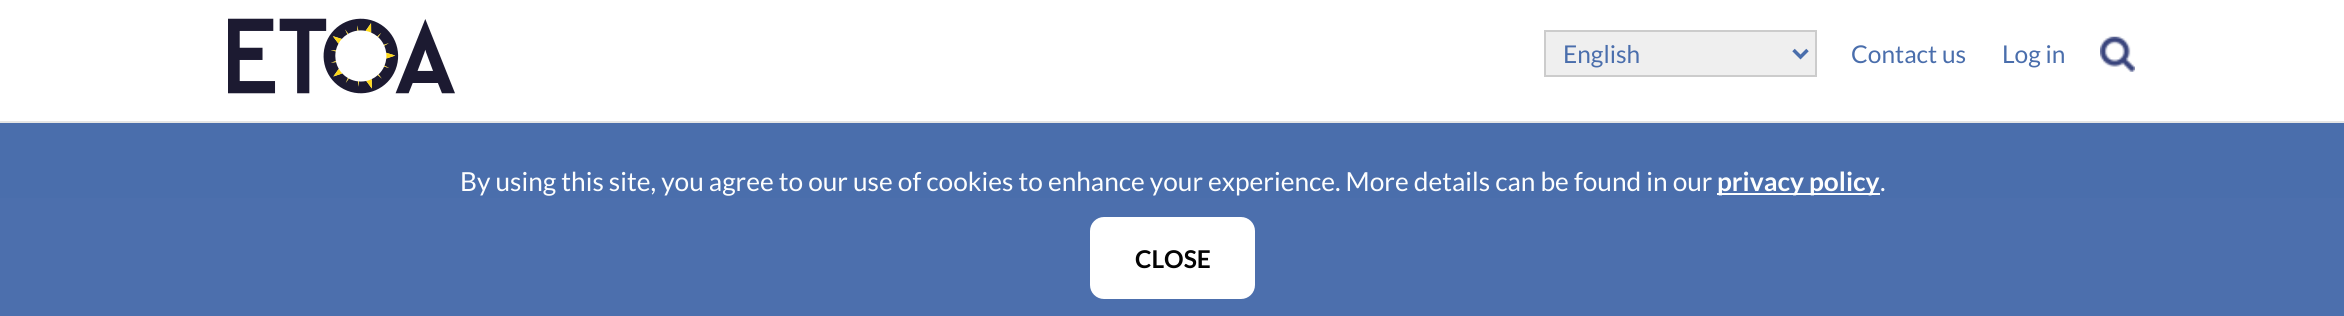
import math
import cairo

surface = cairo.ImageSurface(cairo.FORMAT_RGB24, 2344, 316)
cr = cairo.Context(surface)
options = cairo.FontOptions()
options.set_hint_metrics(cairo.HINT_METRICS_OFF)
options.set_hint_style(cairo.HINT_STYLE_NONE)
cr.set_font_options(options)
cr.set_miter_limit(4)


def rgb(code):
    cr.set_source_rgb(*(v / 255 for v in bytes.fromhex(code[-6:])))


def rrect(x, y, w, h, r):
    cr.new_sub_path()
    for i, (u, v) in enumerate([(x + w - r, y + h - r), (x + r, y + h - r), (x + r, y + r), (x + w - r, y + r)]):
        cr.arc(u, v, r, i * math.pi / 2, (i + 1) * math.pi / 2)
    cr.close_path()


def image(path, x, y, w, h):
    cr.save()
    cr.set_source_surface(cairo.ImageSurface.create_from_png(path), x, y)
    cr.rectangle(x, y, w, h)
    cr.fill()
    cr.restore()


rgb("#ffffff")
cr.paint()
rgb("#4c6fad")
cr.rectangle(0, 198, 2344, 118)
cr.fill()
rgb("#e5e5e5")
cr.rectangle(0, 121, 2344, 2)
cr.fill()
image("img/1.png", 228, 18, 227, 76)
rgb("#efefef")
cr.rectangle(1545, 31, 271, 45)
cr.fill_preserve()
rgb("#cccccc")
cr.stroke()
cr.new_path()
cr.move_to(1793.5, 50)
cr.line_to(1800.5, 57)
cr.line_to(1807.5, 50)
rgb("#4a6eac")
cr.set_line_width(3.5)
cr.stroke()
image("img/2.png", 2100, 36, 35, 36)
cr.rectangle(0, 123, 2344, 75)
cr.fill()
rgb("#fdfefe")
cr.rectangle(1717, 193, 163, 2)
cr.fill()
rgb("#ffffff")
rrect(1090, 217, 165, 82, 14)
cr.fill()
cr.select_font_face("Lato")
cr.set_font_size(24.5)
rgb("#4a6eac")
for x, y, s in [
    (1563, 63, "English"),
    (1851, 63, "Contact us"),
    (2002, 63, "Log in"),
]:
    cr.move_to(x, y)
    cr.show_text(s)
cr.set_font_size(26.25)
rgb("#fdfefe")
cr.move_to(460, 191)
cr.show_text("By using this site, you agree to our use of cookies to enhance your experience. More details can be found in our")
cr.select_font_face("Lato", cairo.FONT_SLANT_NORMAL, cairo.FONT_WEIGHT_BOLD)
cr.move_to(1717, 191)
cr.show_text("privacy policy")
cr.select_font_face("Lato")
cr.move_to(1880, 191)
cr.show_text(".")
cr.select_font_face("Lato", cairo.FONT_SLANT_NORMAL, cairo.FONT_WEIGHT_BOLD)
cr.set_font_size(24.5)
rgb("#030303")
cr.move_to(1135, 268)
cr.show_text("CLOSE")
surface.write_to_png("page.png")
